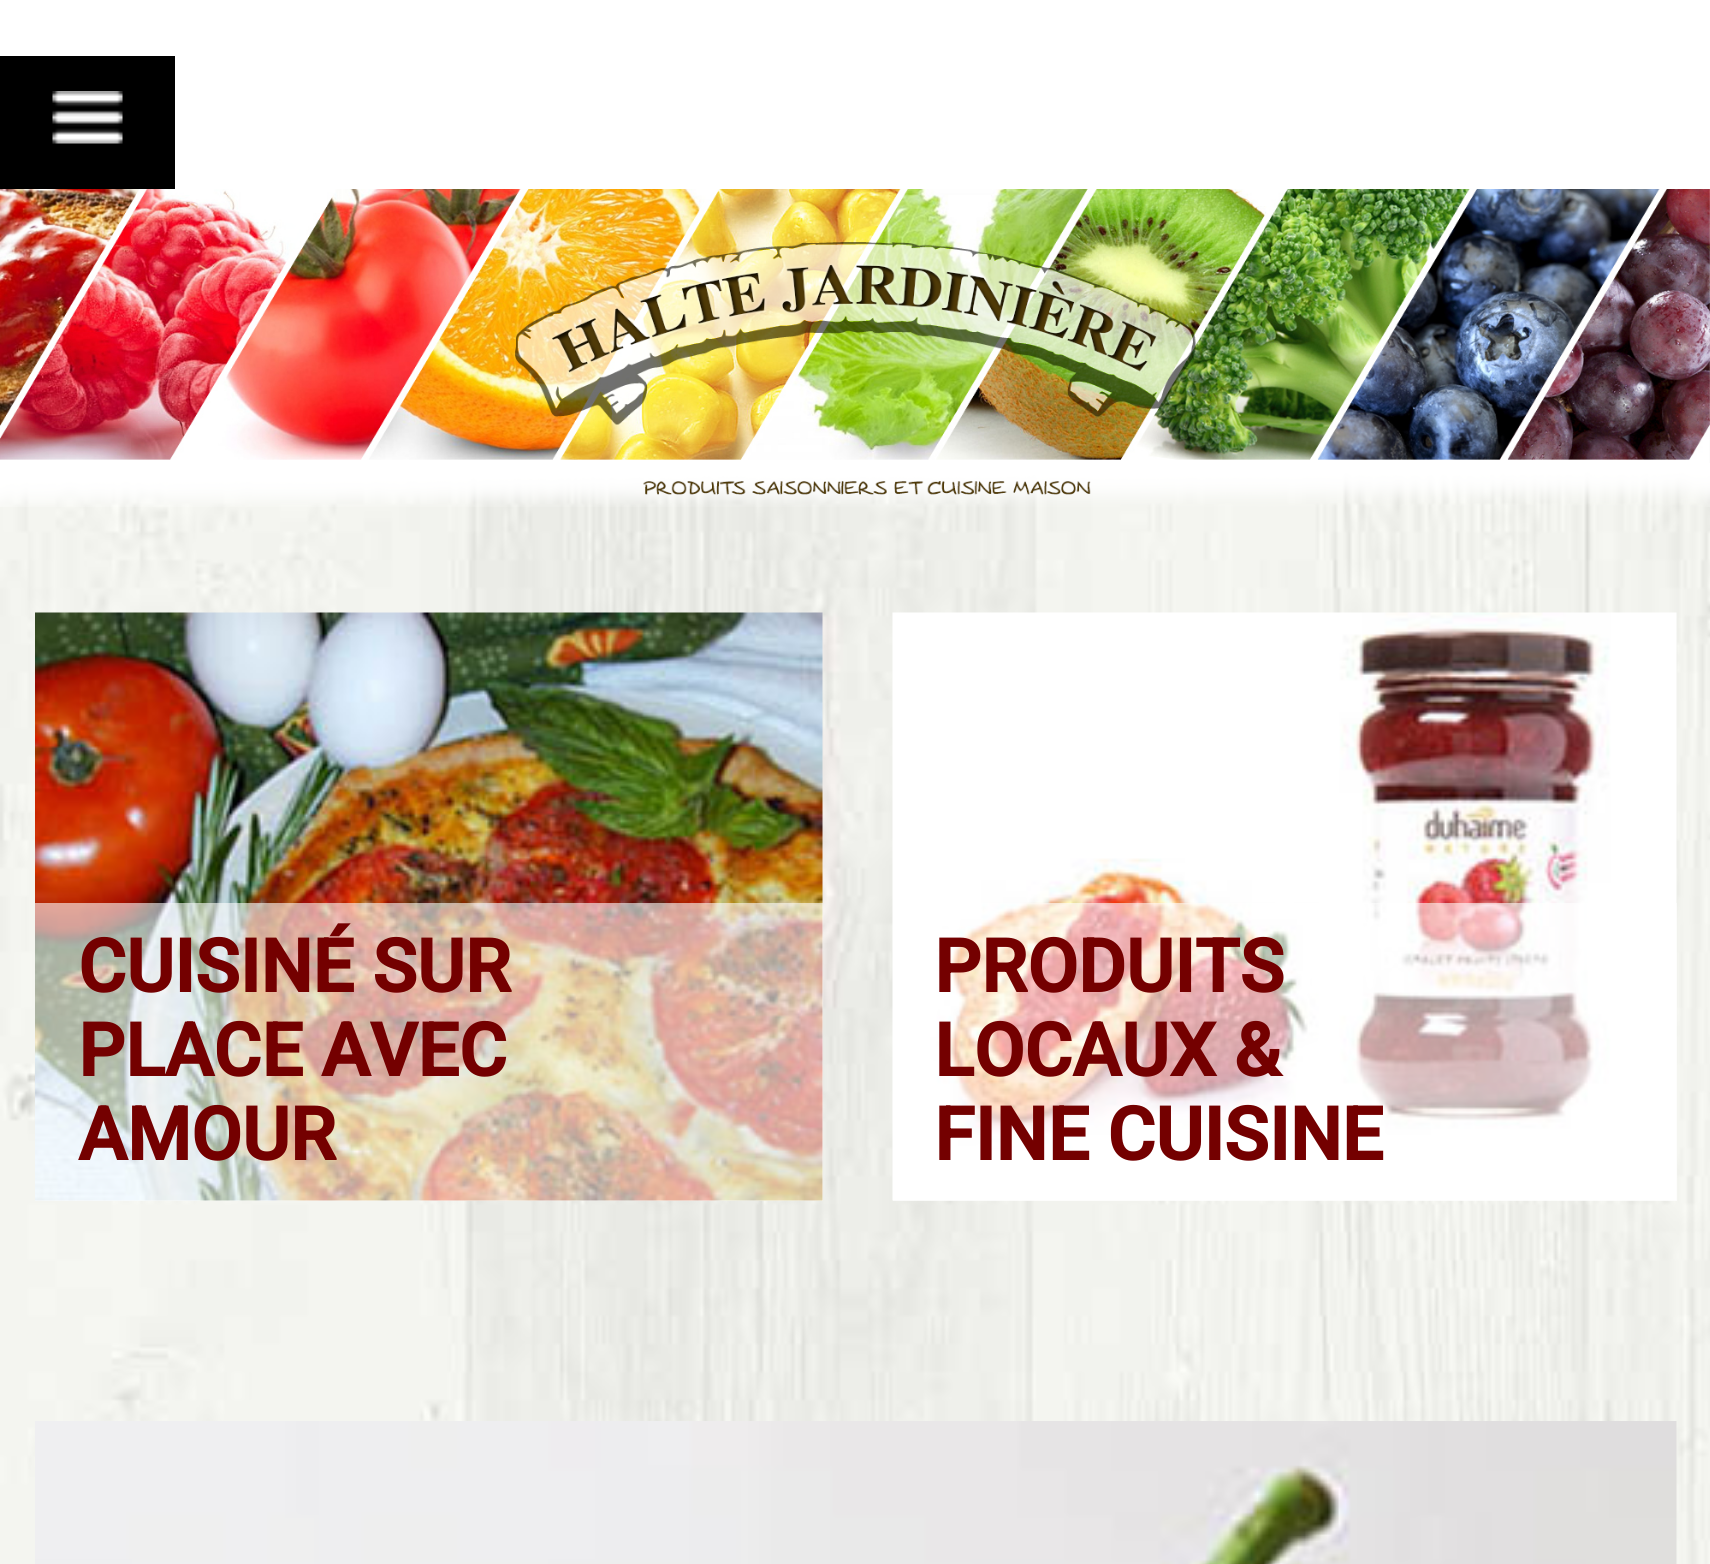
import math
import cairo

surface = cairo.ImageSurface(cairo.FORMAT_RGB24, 1710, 1564)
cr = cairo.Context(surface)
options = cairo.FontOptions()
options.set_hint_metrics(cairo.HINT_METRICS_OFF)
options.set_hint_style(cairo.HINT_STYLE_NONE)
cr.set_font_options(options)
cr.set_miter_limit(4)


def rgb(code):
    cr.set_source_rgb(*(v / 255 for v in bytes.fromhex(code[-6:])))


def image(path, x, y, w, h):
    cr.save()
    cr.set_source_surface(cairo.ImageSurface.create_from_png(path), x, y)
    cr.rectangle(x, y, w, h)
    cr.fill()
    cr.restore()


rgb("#ffffff")
cr.paint()
image("img/1.png", 0, 189, 1710, 1375)
rgb("#000000")
cr.rectangle(0, 56, 175, 133)
cr.fill()
image("img/2.png", 52, 91, 71, 53)
image("img/3.png", 0, 189, 1710, 318)
image("img/4.png", 35, 612, 788, 589)
cr.set_source_rgba(1, 1, 1, 0.6)
cr.rectangle(35, 903, 788, 298)
cr.fill()
image("img/5.png", 892, 612, 785, 589)
cr.rectangle(893, 903, 784, 298)
cr.fill()
image("img/6.png", 35, 1421, 1642, 143)
cr.select_font_face("Roboto", cairo.FONT_SLANT_NORMAL, cairo.FONT_WEIGHT_BOLD)
cr.set_font_size(73.5)
rgb("#740000")
for x, y, s in [
    (78, 992, "CUISINÉ SUR"),
    (78, 1076, "PLACE AVEC"),
    (78, 1160, "AMOUR"),
    (934, 992, "PRODUITS"),
    (934, 1076, "LOCAUX &"),
    (934, 1160, "FINE CUISINE"),
]:
    cr.move_to(x, y)
    cr.show_text(s)
surface.write_to_png("page.png")
